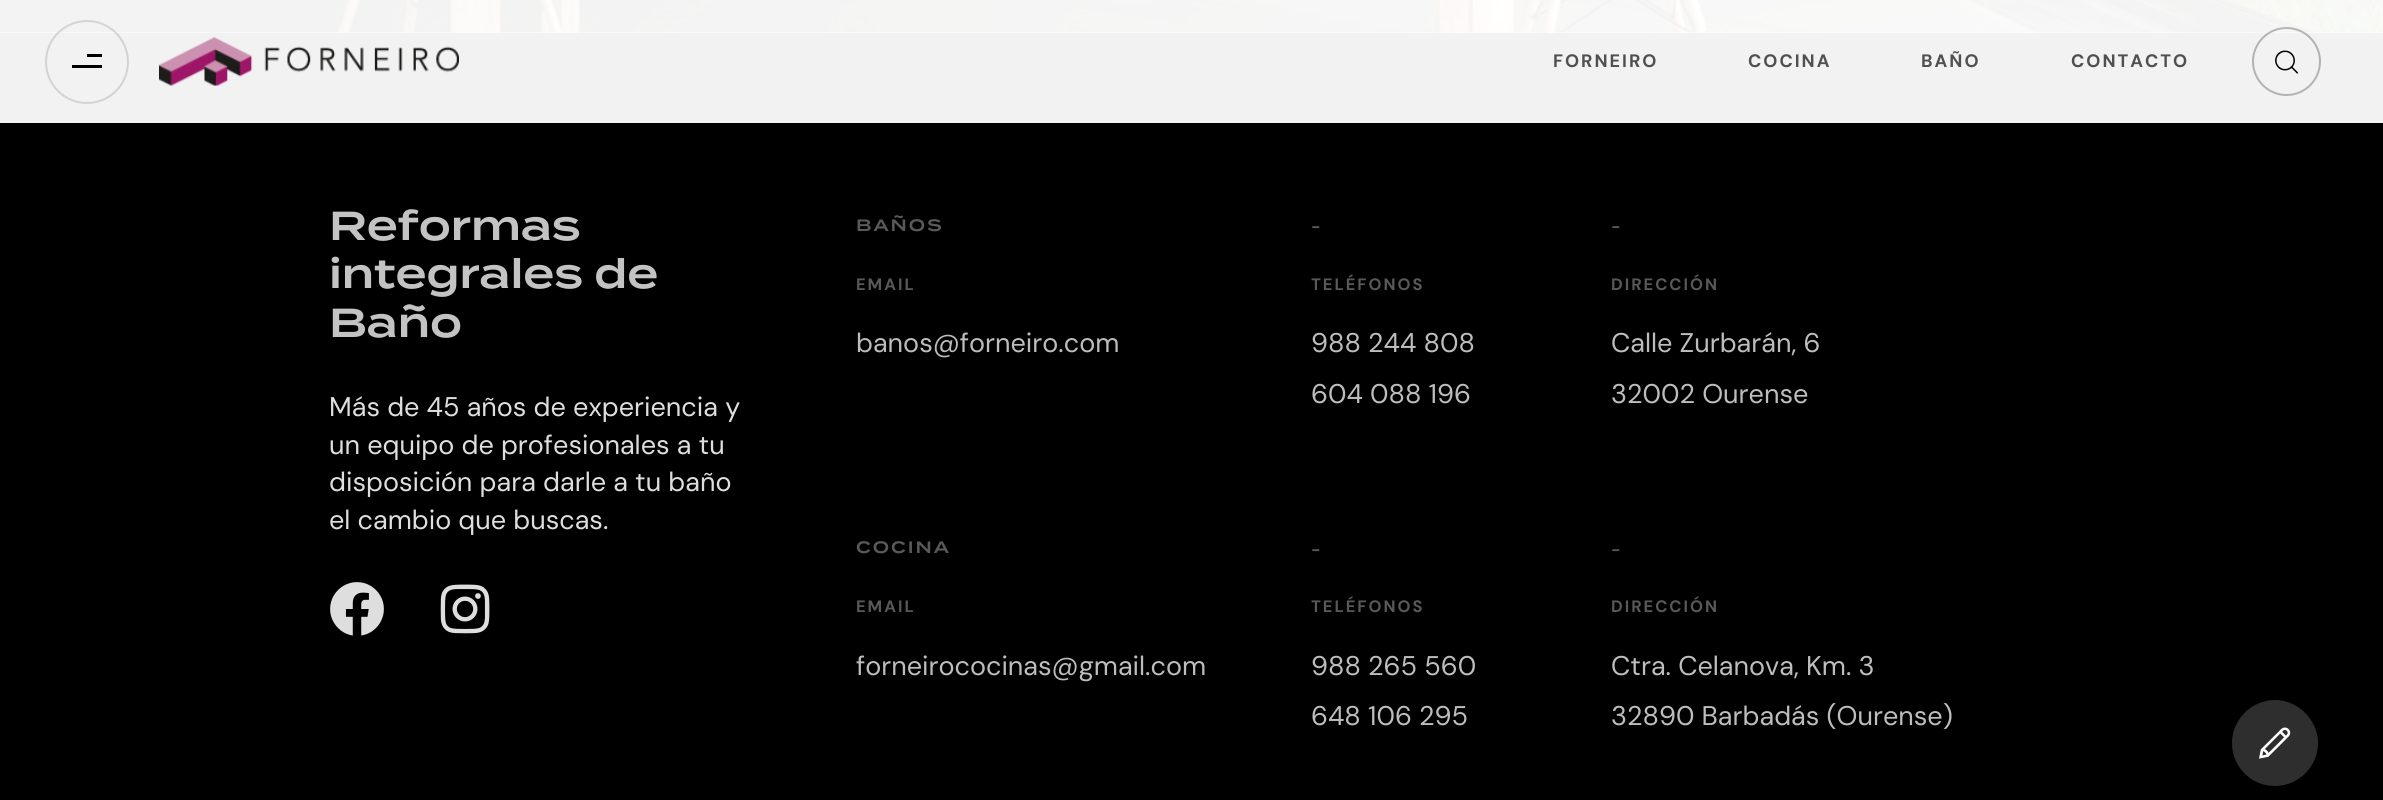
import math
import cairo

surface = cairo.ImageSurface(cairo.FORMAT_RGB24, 2383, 800)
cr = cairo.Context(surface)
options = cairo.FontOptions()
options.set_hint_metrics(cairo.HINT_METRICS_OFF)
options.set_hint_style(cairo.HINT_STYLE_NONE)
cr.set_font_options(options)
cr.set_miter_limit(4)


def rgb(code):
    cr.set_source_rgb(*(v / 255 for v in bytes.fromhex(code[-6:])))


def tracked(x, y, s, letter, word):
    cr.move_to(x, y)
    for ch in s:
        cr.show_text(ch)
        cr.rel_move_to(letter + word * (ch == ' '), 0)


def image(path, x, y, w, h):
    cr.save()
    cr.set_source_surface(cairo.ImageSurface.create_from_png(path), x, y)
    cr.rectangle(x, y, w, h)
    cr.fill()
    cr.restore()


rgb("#000000")
cr.paint()
rgb("#ffffff")
cr.rectangle(0, 32, 2383, 1)
cr.fill()
image("img/1.png", 0, 0, 2383, 33)
rgb("#f2f2f2")
cr.rectangle(0, 33, 2383, 90)
cr.fill()
cr.arc(87, 62, 41, 0, 2 * math.pi)
cr.set_source_rgba(0, 0, 0, 0.13)
cr.stroke()
rgb("#000000")
cr.rectangle(87, 54, 15, 3)
cr.fill()
cr.rectangle(72, 65, 30, 3)
cr.fill()
image("img/2.png", 159, 37, 300, 49)
cr.arc(2286.5, 61.5, 33.5, 0, 2 * math.pi)
cr.set_source_rgba(0, 0, 0, 0.26)
cr.stroke()
image("img/3.png", 2275, 50, 23, 24)
rgb("#2e2e2e")
cr.new_path()
cr.move_to(2232, 743)
cr.curve_to(2232, 720, 2251, 700, 2275, 700)
cr.curve_to(2298, 700, 2318, 720, 2318, 743)
cr.curve_to(2318, 767, 2298, 786, 2275, 786)
cr.curve_to(2251, 786, 2232, 767, 2232, 743)
cr.close_path()
cr.fill()
image("img/4.png", 2259, 727, 32, 32)
image("img/5.png", 330, 582, 54, 54)
image("img/6.png", 440, 584, 50, 50)
cr.select_font_face("DM Sans", cairo.FONT_SLANT_NORMAL, cairo.FONT_WEIGHT_BOLD)
cr.set_font_size(18)
rgb("#505050")
for x, y, s in [
    (1553, 67, "FORNEIRO"),
    (1748, 67, "COCINA"),
    (1921, 67, "BAÑO"),
    (2071, 67, "CONTACTO"),
]:
    tracked(x, y, s, 2, 0)
cr.select_font_face("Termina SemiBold")
cr.set_font_size(40.5)
rgb("#c3c3c3")
for x, y, s in [
    (329, 240, "Reformas"),
    (329, 288, "integrales de"),
    (329, 337, "Baño"),
]:
    cr.move_to(x, y)
    cr.show_text(s)
cr.select_font_face("DM Sans")
cr.set_font_size(27)
rgb("#dedede")
for x, y, s in [
    (329, 416, "Más de 45 años de experiencia y"),
    (329, 454, "un equipo de profesionales a tu"),
    (329, 491, "disposición para darle a tu baño"),
    (329, 529, "el cambio que buscas."),
]:
    cr.move_to(x, y)
    cr.show_text(s)
cr.select_font_face("Termina SemiBold")
cr.set_font_size(16.5)
rgb("#595959")
tracked(856, 231, "BAÑOS", 2, 0)
cr.select_font_face("DM Sans", cairo.FONT_SLANT_NORMAL, cairo.FONT_WEIGHT_BOLD)
tracked(856, 290, "EMAIL", 2, 0)
cr.select_font_face("DM Sans")
cr.set_font_size(27)
rgb("#bdbdbd")
cr.move_to(856, 352)
cr.show_text("banos@forneiro.com")
cr.select_font_face("DM Sans", cairo.FONT_SLANT_NORMAL, cairo.FONT_WEIGHT_BOLD)
cr.set_font_size(16.5)
rgb("#595959")
tracked(1311, 232, "-", 2, 0)
tracked(1311, 290, "TELÉFONOS", 2, 0)
cr.select_font_face("DM Sans")
cr.set_font_size(27)
rgb("#bdbdbd")
cr.move_to(1311, 352)
cr.show_text("988 244 808")
cr.move_to(1311, 403)
cr.show_text("604 088 196")
cr.select_font_face("DM Sans", cairo.FONT_SLANT_NORMAL, cairo.FONT_WEIGHT_BOLD)
cr.set_font_size(16.5)
rgb("#595959")
tracked(1611, 232, "-", 2, 0)
tracked(1611, 290, "DIRECCIÓN", 2, 0)
cr.select_font_face("DM Sans")
cr.set_font_size(27)
rgb("#bdbdbd")
cr.move_to(1611, 352)
cr.show_text("Calle Zurbarán, 6")
cr.move_to(1611, 403)
cr.show_text("32002 Ourense")
cr.select_font_face("Termina SemiBold")
cr.set_font_size(16.5)
rgb("#595959")
tracked(856, 553, "COCINA", 2, 0)
cr.select_font_face("DM Sans", cairo.FONT_SLANT_NORMAL, cairo.FONT_WEIGHT_BOLD)
tracked(856, 612, "EMAIL", 2, 0)
cr.select_font_face("DM Sans")
cr.set_font_size(27)
rgb("#bdbdbd")
cr.move_to(856, 675)
cr.show_text("forneirococinas@gmail.com")
cr.select_font_face("DM Sans", cairo.FONT_SLANT_NORMAL, cairo.FONT_WEIGHT_BOLD)
cr.set_font_size(16.5)
rgb("#595959")
tracked(1311, 555, "-", 2, 0)
tracked(1311, 612, "TELÉFONOS", 2, 0)
cr.select_font_face("DM Sans")
cr.set_font_size(27)
rgb("#bdbdbd")
cr.move_to(1311, 675)
cr.show_text("988 265 560")
cr.move_to(1311, 725)
cr.show_text("648 106 295")
cr.select_font_face("DM Sans", cairo.FONT_SLANT_NORMAL, cairo.FONT_WEIGHT_BOLD)
cr.set_font_size(16.5)
rgb("#595959")
tracked(1611, 555, "-", 2, 0)
tracked(1611, 612, "DIRECCIÓN", 2, 0)
cr.select_font_face("DM Sans")
cr.set_font_size(27)
rgb("#bdbdbd")
cr.move_to(1611, 675)
cr.show_text("Ctra. Celanova, Km. 3")
cr.move_to(1611, 725)
cr.show_text("32890 Barbadás (Ourense)")
surface.write_to_png("page.png")
